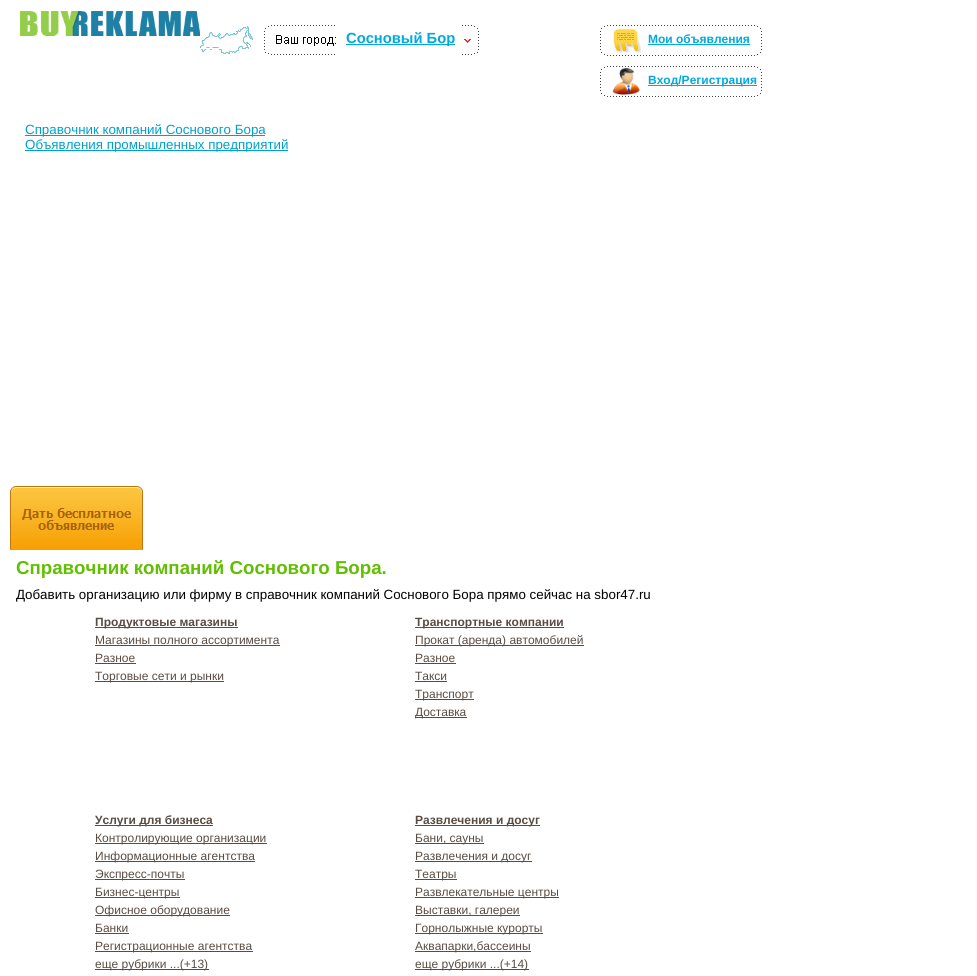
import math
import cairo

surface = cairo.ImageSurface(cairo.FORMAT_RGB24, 977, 976)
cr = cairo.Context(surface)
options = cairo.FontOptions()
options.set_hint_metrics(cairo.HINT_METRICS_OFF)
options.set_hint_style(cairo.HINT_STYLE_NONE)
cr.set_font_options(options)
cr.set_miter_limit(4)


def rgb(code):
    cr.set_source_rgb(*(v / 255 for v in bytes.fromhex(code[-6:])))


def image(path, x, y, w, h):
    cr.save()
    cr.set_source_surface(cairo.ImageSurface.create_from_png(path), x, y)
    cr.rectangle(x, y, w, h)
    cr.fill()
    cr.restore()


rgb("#ffffff")
cr.paint()
image("img/1.png", 20, 11, 180, 25)
image("img/2.png", 200, 25, 136, 30)
rgb("#ffffff")
cr.rectangle(200, 48, 25, 1)
cr.fill()
rgb("#00aae0")
cr.rectangle(346, 44, 109, 1)
cr.fill()
image("img/3.png", 462, 25, 17, 30)
image("img/4.png", 600, 25, 162, 31)
cr.rectangle(648, 44, 102, 1)
cr.fill()
image("img/5.png", 600, 66, 162, 31)
for x, y, w, h, color in [
    (648, 85, 109, 1, "#00aae0"),
    (25, 135, 240, 1, "#00a0cd"),
    (25, 150, 263, 1, "#00a0cd"),
]:
    rgb(color)
    cr.rectangle(x, y, w, h)
    cr.fill()
image("img/6.png", 10, 486, 133, 64)
for x, y, w, h, color in [
    (95, 627, 143, 1, "#594c43"),
    (95, 645, 185, 1, "#594c43"),
    (95, 663, 41, 1, "#594c43"),
    (95, 681, 129, 1, "#594c43"),
    (415, 627, 149, 1, "#594c43"),
    (415, 645, 169, 1, "#594c43"),
    (415, 663, 41, 1, "#594c43"),
    (415, 681, 32, 1, "#594c43"),
    (415, 699, 59, 1, "#594c43"),
    (415, 717, 52, 1, "#594c43"),
    (95, 825, 118, 1, "#594c43"),
    (95, 843, 172, 1, "#594c43"),
    (95, 861, 160, 1, "#594c43"),
    (95, 879, 90, 1, "#594c43"),
    (95, 897, 85, 1, "#594c43"),
    (95, 915, 135, 1, "#594c43"),
    (95, 933, 34, 1, "#594c43"),
    (95, 951, 158, 1, "#594c43"),
    (95, 969, 114, 1, "#594c43"),
    (415, 825, 125, 1, "#594c43"),
    (415, 843, 69, 1, "#594c43"),
    (415, 861, 117, 1, "#594c43"),
    (415, 879, 42, 1, "#594c43"),
    (415, 897, 144, 1, "#594c43"),
    (415, 915, 105, 1, "#594c43"),
    (415, 933, 128, 1, "#594c43"),
    (415, 951, 116, 1, "#594c43"),
    (415, 969, 114, 1, "#594c43"),
]:
    rgb(color)
    cr.rectangle(x, y, w, h)
    cr.fill()
cr.select_font_face("Liberation Sans", cairo.FONT_SLANT_NORMAL, cairo.FONT_WEIGHT_BOLD)
cr.set_font_size(14.75)
rgb("#00aae0")
cr.move_to(346, 43)
cr.show_text("Сосновый Бор")
cr.set_font_size(12)
cr.move_to(648, 43)
cr.show_text("Мои объявления")
cr.move_to(648, 84)
cr.show_text("Вход/Регистрация")
cr.select_font_face("Liberation Sans")
cr.set_font_size(13.35)
rgb("#00a0cd")
cr.move_to(25, 134)
cr.show_text("Справочник компаний Соснового Бора")
cr.move_to(25, 149)
cr.show_text("Объявления промышленных предприятий")
cr.select_font_face("Liberation Sans", cairo.FONT_SLANT_NORMAL, cairo.FONT_WEIGHT_BOLD)
cr.set_font_size(18.7)
rgb("#61be00")
cr.move_to(16, 574)
cr.show_text("Справочник компаний Соснового Бора.")
cr.select_font_face("Liberation Sans")
cr.set_font_size(13.35)
rgb("#000000")
cr.move_to(16, 599)
cr.show_text("Добавить организацию или фирму в справочник компаний Соснового Бора прямо сейчас на sbor47.ru")
cr.select_font_face("Liberation Sans", cairo.FONT_SLANT_NORMAL, cairo.FONT_WEIGHT_BOLD)
cr.set_font_size(12)
rgb("#594c43")
cr.move_to(95, 626)
cr.show_text("Продуктовые магазины")
cr.select_font_face("Liberation Sans")
for x, y, s in [
    (95, 644, "Магазины полного ассортимента"),
    (95, 662, "Разное"),
    (95, 680, "Торговые сети и рынки"),
]:
    cr.move_to(x, y)
    cr.show_text(s)
cr.select_font_face("Liberation Sans", cairo.FONT_SLANT_NORMAL, cairo.FONT_WEIGHT_BOLD)
cr.move_to(415, 626)
cr.show_text("Транспортные компании")
cr.select_font_face("Liberation Sans")
for x, y, s in [
    (415, 644, "Прокат (аренда) автомобилей"),
    (415, 662, "Разное"),
    (415, 680, "Такси"),
    (415, 698, "Транспорт"),
    (415, 716, "Доставка"),
]:
    cr.move_to(x, y)
    cr.show_text(s)
cr.select_font_face("Liberation Sans", cairo.FONT_SLANT_NORMAL, cairo.FONT_WEIGHT_BOLD)
cr.move_to(95, 824)
cr.show_text("Услуги для бизнеса")
cr.select_font_face("Liberation Sans")
for x, y, s in [
    (95, 842, "Контролирующие организации"),
    (95, 860, "Информационные агентства"),
    (95, 878, "Экспресс-почты"),
    (95, 896, "Бизнес-центры"),
    (95, 914, "Офисное оборудование"),
    (95, 932, "Банки"),
    (95, 950, "Регистрационные агентства"),
    (95, 968, "еще рубрики ...(+13)"),
]:
    cr.move_to(x, y)
    cr.show_text(s)
cr.select_font_face("Liberation Sans", cairo.FONT_SLANT_NORMAL, cairo.FONT_WEIGHT_BOLD)
cr.move_to(415, 824)
cr.show_text("Развлечения и досуг")
cr.select_font_face("Liberation Sans")
for x, y, s in [
    (415, 842, "Бани, сауны"),
    (415, 860, "Развлечения и досуг"),
    (415, 878, "Театры"),
    (415, 896, "Развлекательные центры"),
    (415, 914, "Выставки, галереи"),
    (415, 932, "Горнолыжные курорты"),
    (415, 950, "Аквапарки,бассеины"),
    (415, 968, "еще рубрики ...(+14)"),
]:
    cr.move_to(x, y)
    cr.show_text(s)
surface.write_to_png("page.png")
